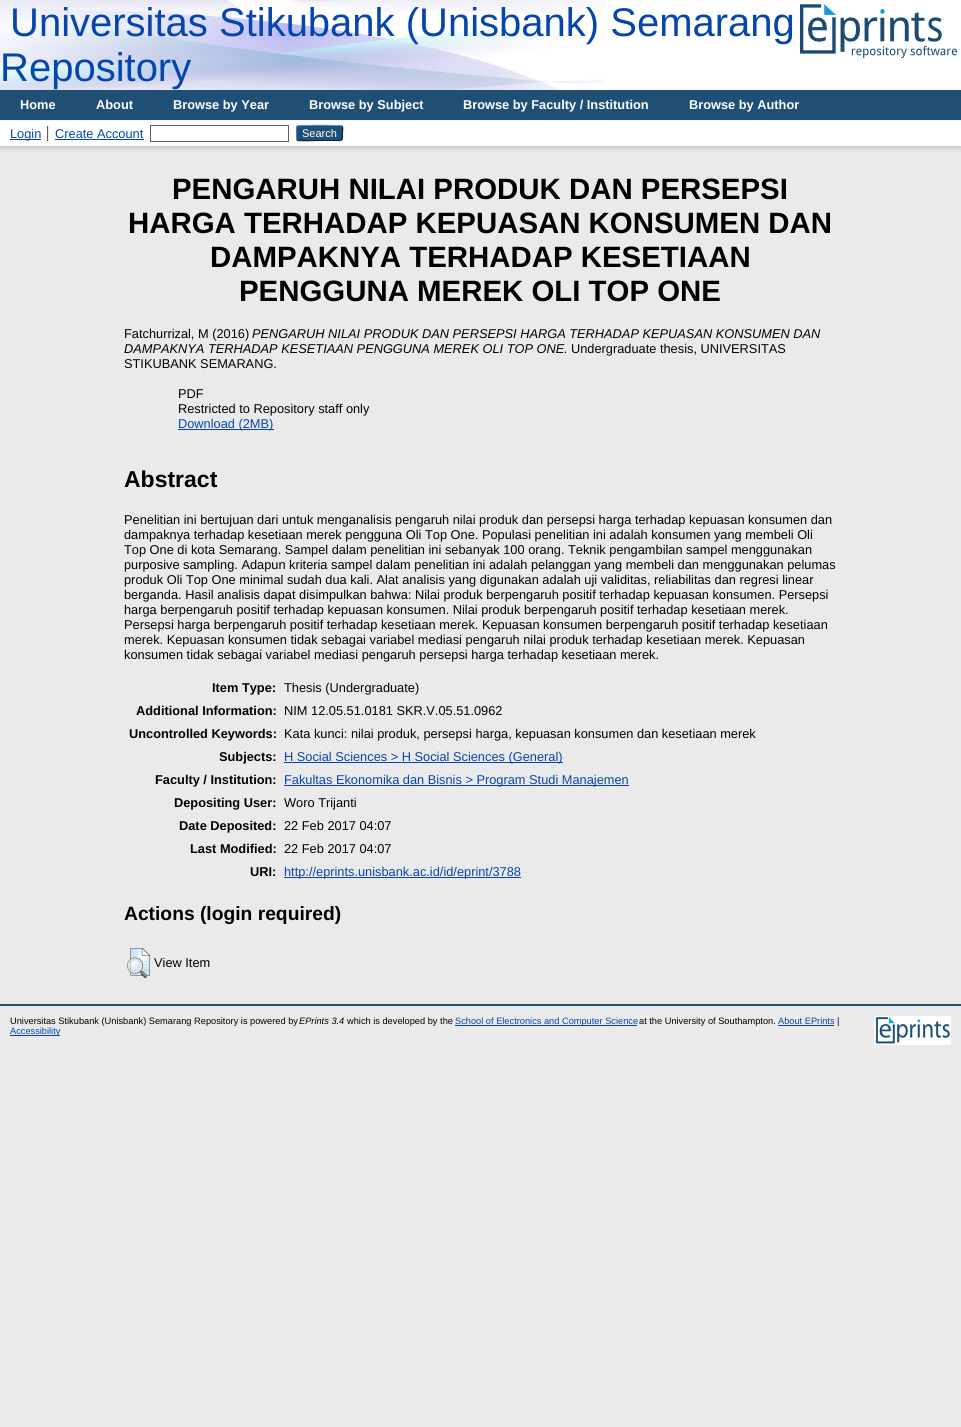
import math
import cairo

surface = cairo.ImageSurface(cairo.FORMAT_RGB24, 961, 1427)
cr = cairo.Context(surface)
options = cairo.FontOptions()
options.set_hint_metrics(cairo.HINT_METRICS_OFF)
options.set_hint_style(cairo.HINT_STYLE_NONE)
cr.set_font_options(options)
cr.set_miter_limit(4)


def rgb(code):
    cr.set_source_rgb(*(v / 255 for v in bytes.fromhex(code[-6:])))


def rrect(x, y, w, h, r):
    cr.new_sub_path()
    for i, (u, v) in enumerate([(x + w - r, y + h - r), (x + r, y + h - r), (x + r, y + r), (x + w - r, y + r)]):
        cr.arc(u, v, r, i * math.pi / 2, (i + 1) * math.pi / 2)
    cr.close_path()


def soft_shadow(x, y, w, h, r, blur, alpha):
    cr.push_group_with_content(cairo.CONTENT_ALPHA)
    cr.set_operator(cairo.OPERATOR_SOURCE)
    for i in range(15, -16, -2):
        e = blur * i / 6
        if min(w, h) + 2 * e > 0:
            cr.set_source_rgba(0, 0, 0, alpha * math.erfc((i - 1) / 8.5) / 2)
            rrect(x - e, y - e, w + 2 * e, h + 2 * e, max(0, min(r + e + blur * .6, min(w, h) / 2 + e)))
            cr.fill()
    cr.mask(cr.pop_group())


def image(path, x, y, w, h):
    cr.save()
    cr.set_source_surface(cairo.ImageSurface.create_from_png(path), x, y)
    cr.rectangle(x, y, w, h)
    cr.fill()
    cr.restore()


rgb("#eaeaea")
cr.paint()
rgb("#ffffff")
cr.rectangle(0, 0, 961, 90)
cr.fill()
image("img/1.png", 0, 0, 605, 90)
image("img/2.png", 800, 4, 157, 54)
rgb("#204f76")
cr.rectangle(0, 90, 961, 30)
cr.fill()
rgb("#ffffff")
cr.rectangle(0, 120, 961, 1)
cr.fill()
rgb("#646464")
soft_shadow(0, 123, 961, 25, 0, 3, 0.3)
for x, y, w, h, color in [
    (0, 121, 961, 25, "#ffffff"),
    (47, 126, 1, 15, "#606060"),
    (10, 139, 31, 1, "#0645ad"),
    (48, 126, 1, 15, "#e8e8e8"),
    (55, 139, 89, 1, "#0645ad"),
]:
    rgb(color)
    cr.rectangle(x, y, w, h)
    cr.fill()
cr.rectangle(150.5, 125.5, 138, 16)
rgb("#606060")
cr.set_line_width(1)
cr.stroke()
rgb("#1f4f76")
rrect(296, 125, 47, 16, 3)
cr.fill()
cr.new_path()
cr.move_to(297, 126)
cr.curve_to(298.5, 125, 340.5, 125, 342, 126)
rgb("#5b97c7")
cr.stroke()
cr.new_path()
cr.move_to(342, 126)
cr.curve_to(343.5, 128, 342.5, 131, 342.5, 133)
cr.curve_to(342.5, 142, 342.5, 140.5, 333, 140.5)
cr.line_to(319.5, 140.5)
cr.curve_to(316, 140.5, 299, 141.5, 297, 140)
rgb("#0d2131")
cr.stroke()
cr.new_path()
cr.move_to(297, 140)
cr.curve_to(296, 138.5, 296.5, 134.5, 296.5, 133)
cr.curve_to(296.5, 131.5, 296, 127.5, 297, 126)
rgb("#5287b3")
cr.stroke()
for x, y, w, h, color in [
    (178, 429, 96, 1, "#0645ad"),
    (284, 762, 279, 1, "#0645ad"),
    (284, 785, 345, 1, "#0645ad"),
    (284, 877, 237, 1, "#0645ad"),
]:
    rgb(color)
    cr.rectangle(x, y, w, h)
    cr.fill()
image("img/3.png", 127, 948, 23, 30)
for x, y, w, h, color in [
    (0, 1004, 961, 2, "#204f76"),
    (455, 1025, 182, 1, "#0645ad"),
    (778, 1025, 56, 1, "#0645ad"),
    (10, 1035, 50, 1, "#0645ad"),
]:
    rgb(color)
    cr.rectangle(x, y, w, h)
    cr.fill()
image("img/4.png", 874, 1016, 77, 29)
cr.select_font_face("Liberation Sans")
cr.set_font_size(40)
cr.move_to(10, 36)
cr.show_text("Universitas Stikubank (Unisbank) Semarang")
cr.move_to(0, 81)
cr.show_text("Repository")
cr.select_font_face("Liberation Sans", cairo.FONT_SLANT_NORMAL, cairo.FONT_WEIGHT_BOLD)
cr.set_font_size(12.8)
rgb("#ffffff")
for x, y, s in [
    (20, 109, "Home"),
    (96, 109, "About"),
    (173, 109, "Browse by Year"),
    (309, 109, "Browse by Subject"),
    (463, 109, "Browse by Faculty / Institution"),
    (689, 109, "Browse by Author"),
]:
    cr.move_to(x, y)
    cr.show_text(s)
cr.select_font_face("Liberation Sans")
rgb("#0645ad")
cr.move_to(10, 138)
cr.show_text("Login")
cr.move_to(55, 138)
cr.show_text("Create Account")
cr.set_font_size(11)
rgb("#ffffff")
cr.move_to(302, 137)
cr.show_text("Search")
cr.select_font_face("Liberation Sans", cairo.FONT_SLANT_NORMAL, cairo.FONT_WEIGHT_BOLD)
cr.set_font_size(29.4)
rgb("#000000")
for x, y, s in [
    (172, 199, "PENGARUH NILAI PRODUK DAN PERSEPSI"),
    (128, 233, "HARGA TERHADAP KEPUASAN KONSUMEN DAN"),
    (210, 267, "DAMPAKNYA TERHADAP KESETIAAN"),
    (239, 301, "PENGGUNA MEREK OLI TOP ONE"),
]:
    cr.move_to(x, y)
    cr.show_text(s)
cr.select_font_face("Liberation Sans")
cr.set_font_size(12.8)
cr.move_to(124, 338)
cr.show_text("Fatchurrizal, M (2016)")
cr.select_font_face("Liberation Sans", cairo.FONT_SLANT_ITALIC)
cr.move_to(252, 338)
cr.show_text("PENGARUH NILAI PRODUK DAN PERSEPSI HARGA TERHADAP KEPUASAN KONSUMEN DAN")
cr.move_to(124, 353)
cr.show_text("DAMPAKNYA TERHADAP KESETIAAN PENGGUNA MEREK OLI TOP ONE.")
cr.select_font_face("Liberation Sans")
for x, y, s in [
    (571, 353, "Undergraduate thesis, UNIVERSITAS"),
    (124, 368, "STIKUBANK SEMARANG."),
    (178, 398, "PDF"),
    (178, 413, "Restricted to Repository staff only"),
]:
    cr.move_to(x, y)
    cr.show_text(s)
rgb("#0645ad")
cr.move_to(178, 428)
cr.show_text("Download (2MB)")
cr.select_font_face("Liberation Sans", cairo.FONT_SLANT_NORMAL, cairo.FONT_WEIGHT_BOLD)
cr.set_font_size(23)
rgb("#000000")
cr.move_to(124, 487)
cr.show_text("Abstract")
cr.select_font_face("Liberation Sans")
cr.set_font_size(12.8)
for x, y, s in [
    (124, 524, "Penelitian ini bertujuan dari untuk menganalisis pengaruh nilai produk dan persepsi harga terhadap kepuasan konsumen dan"),
    (124, 539, "dampaknya terhadap kesetiaan merek pengguna Oli Top One. Populasi penelitian ini adalah konsumen yang membeli Oli"),
    (124, 554, "Top One di kota Semarang. Sampel dalam penelitian ini sebanyak 100 orang. Teknik pengambilan sampel menggunakan"),
    (124, 569, "purposive sampling. Adapun kriteria sampel dalam penelitian ini adalah pelanggan yang membeli dan menggunakan pelumas"),
    (124, 584, "produk Oli Top One minimal sudah dua kali. Alat analisis yang digunakan adalah uji validitas, reliabilitas dan regresi linear"),
    (124, 599, "berganda. Hasil analisis dapat disimpulkan bahwa: Nilai produk berpengaruh positif terhadap kepuasan konsumen. Persepsi"),
    (124, 614, "harga berpengaruh positif terhadap kepuasan konsumen. Nilai produk berpengaruh positif terhadap kesetiaan merek."),
    (124, 629, "Persepsi harga berpengaruh positif terhadap kesetiaan merek. Kepuasan konsumen berpengaruh positif terhadap kesetiaan"),
    (124, 644, "merek. Kepuasan konsumen tidak sebagai variabel mediasi pengaruh nilai produk terhadap kesetiaan merek. Kepuasan"),
    (124, 659, "konsumen tidak sebagai variabel mediasi pengaruh persepsi harga terhadap kesetiaan merek."),
]:
    cr.move_to(x, y)
    cr.show_text(s)
cr.select_font_face("Liberation Sans", cairo.FONT_SLANT_NORMAL, cairo.FONT_WEIGHT_BOLD)
cr.move_to(212, 692)
cr.show_text("Item Type:")
cr.select_font_face("Liberation Sans")
cr.move_to(284, 692)
cr.show_text("Thesis (Undergraduate)")
cr.select_font_face("Liberation Sans", cairo.FONT_SLANT_NORMAL, cairo.FONT_WEIGHT_BOLD)
cr.move_to(136, 715)
cr.show_text("Additional Information:")
cr.select_font_face("Liberation Sans")
cr.move_to(284, 715)
cr.show_text("NIM 12.05.51.0181 SKR.V.05.51.0962")
cr.select_font_face("Liberation Sans", cairo.FONT_SLANT_NORMAL, cairo.FONT_WEIGHT_BOLD)
cr.move_to(129, 738)
cr.show_text("Uncontrolled Keywords:")
cr.select_font_face("Liberation Sans")
cr.move_to(284, 738)
cr.show_text("Kata kunci: nilai produk, persepsi harga, kepuasan konsumen dan kesetiaan merek")
cr.select_font_face("Liberation Sans", cairo.FONT_SLANT_NORMAL, cairo.FONT_WEIGHT_BOLD)
cr.move_to(219, 761)
cr.show_text("Subjects:")
cr.select_font_face("Liberation Sans")
rgb("#0645ad")
cr.move_to(284, 761)
cr.show_text("H Social Sciences > H Social Sciences (General)")
cr.select_font_face("Liberation Sans", cairo.FONT_SLANT_NORMAL, cairo.FONT_WEIGHT_BOLD)
rgb("#000000")
cr.move_to(155, 784)
cr.show_text("Faculty / Institution:")
cr.select_font_face("Liberation Sans")
rgb("#0645ad")
cr.move_to(284, 784)
cr.show_text("Fakultas Ekonomika dan Bisnis > Program Studi Manajemen")
cr.select_font_face("Liberation Sans", cairo.FONT_SLANT_NORMAL, cairo.FONT_WEIGHT_BOLD)
rgb("#000000")
cr.move_to(174, 807)
cr.show_text("Depositing User:")
cr.select_font_face("Liberation Sans")
cr.move_to(284, 807)
cr.show_text("Woro Trijanti")
cr.select_font_face("Liberation Sans", cairo.FONT_SLANT_NORMAL, cairo.FONT_WEIGHT_BOLD)
cr.move_to(179, 830)
cr.show_text("Date Deposited:")
cr.select_font_face("Liberation Sans")
cr.move_to(284, 830)
cr.show_text("22 Feb 2017 04:07")
cr.select_font_face("Liberation Sans", cairo.FONT_SLANT_NORMAL, cairo.FONT_WEIGHT_BOLD)
cr.move_to(190, 853)
cr.show_text("Last Modified:")
cr.select_font_face("Liberation Sans")
cr.move_to(284, 853)
cr.show_text("22 Feb 2017 04:07")
cr.select_font_face("Liberation Sans", cairo.FONT_SLANT_NORMAL, cairo.FONT_WEIGHT_BOLD)
cr.move_to(250, 876)
cr.show_text("URI:")
cr.select_font_face("Liberation Sans")
rgb("#0645ad")
cr.move_to(284, 876)
cr.show_text("http://eprints.unisbank.ac.id/id/eprint/3788")
cr.select_font_face("Liberation Sans", cairo.FONT_SLANT_NORMAL, cairo.FONT_WEIGHT_BOLD)
cr.set_font_size(19.25)
rgb("#000000")
cr.move_to(124, 920)
cr.show_text("Actions (login required)")
cr.select_font_face("Liberation Sans")
cr.set_font_size(12.8)
cr.move_to(154, 967)
cr.show_text("View Item")
cr.set_font_size(9.25)
cr.move_to(10, 1024)
cr.show_text("Universitas Stikubank (Unisbank) Semarang Repository is powered by")
cr.select_font_face("Liberation Sans", cairo.FONT_SLANT_ITALIC)
cr.move_to(299, 1024)
cr.show_text("EPrints 3.4")
cr.select_font_face("Liberation Sans")
cr.move_to(347, 1024)
cr.show_text("which is developed by the")
rgb("#0645ad")
cr.move_to(455, 1024)
cr.show_text("School of Electronics and Computer Science")
rgb("#000000")
cr.move_to(639, 1024)
cr.show_text("at the University of Southampton.")
rgb("#0645ad")
cr.move_to(778, 1024)
cr.show_text("About EPrints")
rgb("#000000")
cr.move_to(837, 1024)
cr.show_text("|")
rgb("#0645ad")
cr.move_to(10, 1034)
cr.show_text("Accessibility")
surface.write_to_png("page.png")
